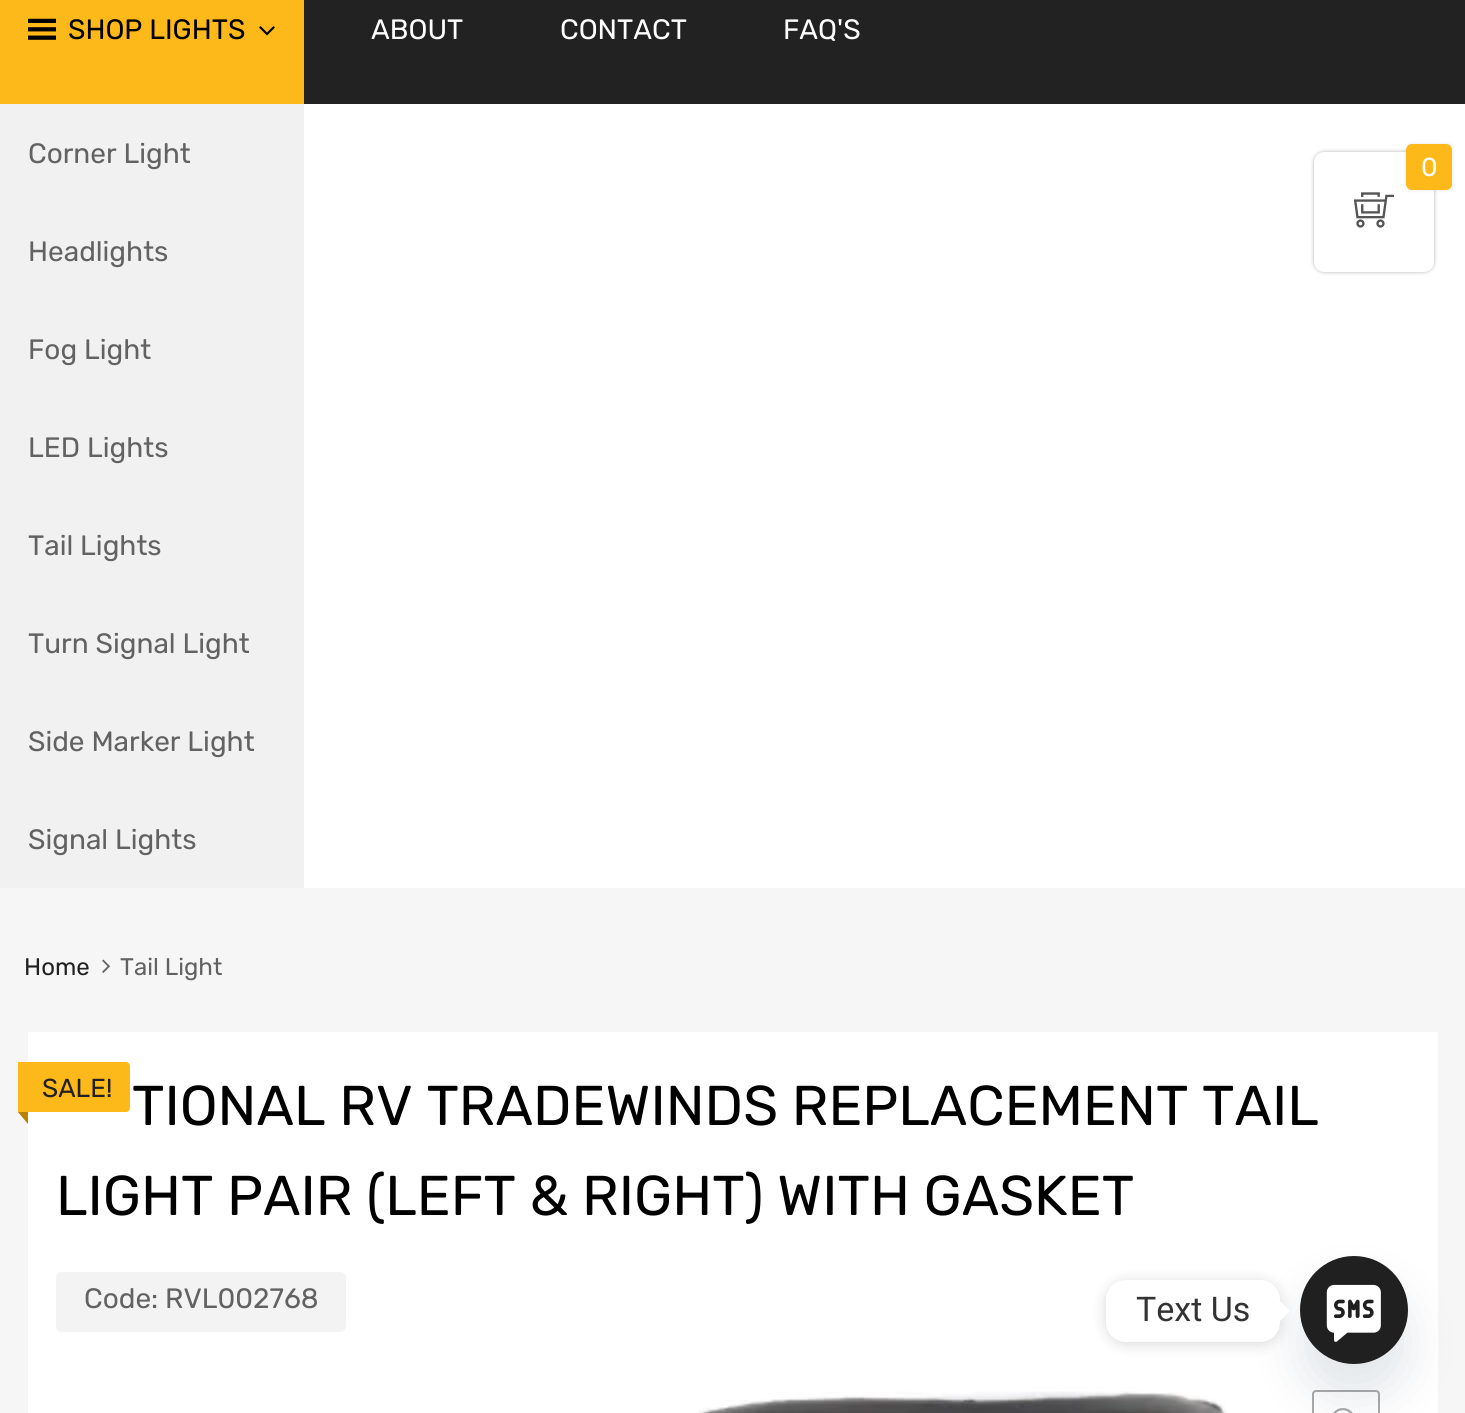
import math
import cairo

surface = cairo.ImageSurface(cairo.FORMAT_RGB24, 1465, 1413)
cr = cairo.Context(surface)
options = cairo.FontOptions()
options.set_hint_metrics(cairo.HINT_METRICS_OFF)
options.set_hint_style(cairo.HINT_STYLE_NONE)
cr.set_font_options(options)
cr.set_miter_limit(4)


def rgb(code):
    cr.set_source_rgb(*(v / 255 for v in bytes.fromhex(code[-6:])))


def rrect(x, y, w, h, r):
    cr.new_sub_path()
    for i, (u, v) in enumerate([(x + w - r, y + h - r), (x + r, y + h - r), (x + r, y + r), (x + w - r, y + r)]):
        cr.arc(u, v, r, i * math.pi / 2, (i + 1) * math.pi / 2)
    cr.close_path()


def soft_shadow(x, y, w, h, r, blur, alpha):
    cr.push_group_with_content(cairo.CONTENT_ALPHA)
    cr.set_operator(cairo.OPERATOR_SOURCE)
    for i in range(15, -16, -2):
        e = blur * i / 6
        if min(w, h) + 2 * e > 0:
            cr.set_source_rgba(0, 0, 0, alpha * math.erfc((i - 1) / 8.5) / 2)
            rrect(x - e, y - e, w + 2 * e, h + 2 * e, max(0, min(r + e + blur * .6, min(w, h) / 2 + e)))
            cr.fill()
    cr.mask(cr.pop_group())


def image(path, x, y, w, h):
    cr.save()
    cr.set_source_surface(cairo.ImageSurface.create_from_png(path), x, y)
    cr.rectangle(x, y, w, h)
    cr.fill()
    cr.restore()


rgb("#f6f6f6")
cr.paint()
for x, y, w, h, color in [
    (304, 104, 1161, 784, "#ffffff"),
    (304, 0, 1161, 104, "#222222"),
    (0, 0, 304, 104, "#fdb819"),
]:
    rgb(color)
    cr.rectangle(x, y, w, h)
    cr.fill()
image("img/1.png", 28, 18, 28, 22)
image("img/2.png", 259, 26, 16, 10)
rgb("#f1f1f1")
cr.rectangle(0, 104, 304, 784)
cr.fill()
image("img/3.png", 102, 959, 8, 14)
rgb("#ffffff")
cr.rectangle(28, 1032, 1410, 381)
cr.fill()
rgb("#fdb819")
cr.new_path()
cr.move_to(18, 1062)
cr.line_to(126, 1062)
cr.curve_to(128, 1062, 130, 1064, 130, 1066)
cr.line_to(130, 1108)
cr.curve_to(130, 1110, 128, 1112, 126, 1112)
cr.line_to(18, 1112)
cr.close_path()
cr.fill()
rgb("#b78000")
cr.new_path()
cr.move_to(18, 1112)
cr.line_to(28, 1112)
cr.line_to(28, 1124)
cr.close_path()
cr.fill()
rgb("#f3f3f3")
rrect(56, 1272, 290, 60, 6)
cr.fill()
image("img/4.png", 698, 1391, 529, 22)
rrect(1313, 1391, 66, 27, 3)
rgb("#a9a9a9")
cr.stroke()
image("img/5.png", 1333, 1408, 20, 5)
rgb("#000000")
soft_shadow(1314, 152, 120, 120, 10, 2, 0.3)
rgb("#ffffff")
rrect(1314, 152, 120, 120, 10)
cr.fill()
rgb("#000000")
soft_shadow(1406, 144, 46, 46, 6, 2, 0.1)
rgb("#fdb819")
rrect(1406, 144, 46, 46, 6)
cr.fill()
image("img/6.png", 1354, 192, 40, 36)
rgb("#49687e")
soft_shadow(1300, 1288, 108, 108, 54, 24, 0.16)
image("img/7.png", 1300, 1256, 108, 108)
rgb("#000000")
soft_shadow(1106, 1282, 174, 62, 20, 7.5, 0.15)
rgb("#ffffff")
rrect(1106, 1280, 174, 62, 20)
cr.fill()
cr.new_path()
cr.move_to(1280, 1321)
cr.line_to(1280, 1301)
cr.line_to(1290, 1311)
cr.close_path()
cr.fill()
cr.select_font_face("Rubik Light")
cr.set_font_size(28)
rgb("#000000")
cr.move_to(68, 39)
cr.show_text("SHOP LIGHTS")
rgb("#626262")
for x, y, s in [
    (28, 163, "Corner Light"),
    (28, 261, "Headlights"),
    (28, 359, "Fog Light"),
    (28, 457, "LED Lights"),
    (28, 555, "Tail Lights"),
    (28, 653, "Turn Signal Light"),
    (28, 751, "Side Marker Light"),
    (28, 849, "Signal Lights"),
]:
    cr.move_to(x, y)
    cr.show_text(s)
rgb("#ffffff")
for x, y, s in [
    (371, 39, "ABOUT"),
    (560, 39, "CONTACT"),
    (783, 39, "FAQ'S"),
]:
    cr.move_to(x, y)
    cr.show_text(s)
cr.set_font_size(24)
rgb("#212121")
cr.move_to(24, 975)
cr.show_text("Home")
rgb("#626262")
cr.move_to(120, 975)
cr.show_text("Tail Light")
cr.set_font_size(26)
rgb("#212121")
cr.move_to(42, 1097)
cr.show_text("SALE!")
cr.set_font_size(56)
rgb("#000000")
cr.move_to(132, 1125)
cr.show_text("TIONAL RV TRADEWINDS REPLACEMENT TAIL")
cr.move_to(56, 1215)
cr.show_text("LIGHT PAIR (LEFT & RIGHT) WITH GASKET")
cr.set_font_size(28)
rgb("#626262")
cr.move_to(84, 1308)
cr.show_text("Code: RVL002768")
cr.set_font_size(26)
rgb("#ffffff")
cr.move_to(1421, 176)
cr.show_text("0")
cr.select_font_face("Roboto")
cr.set_font_size(34)
rgb("#333333")
cr.move_to(1136, 1321)
cr.show_text("Text Us")
surface.write_to_png("page.png")
